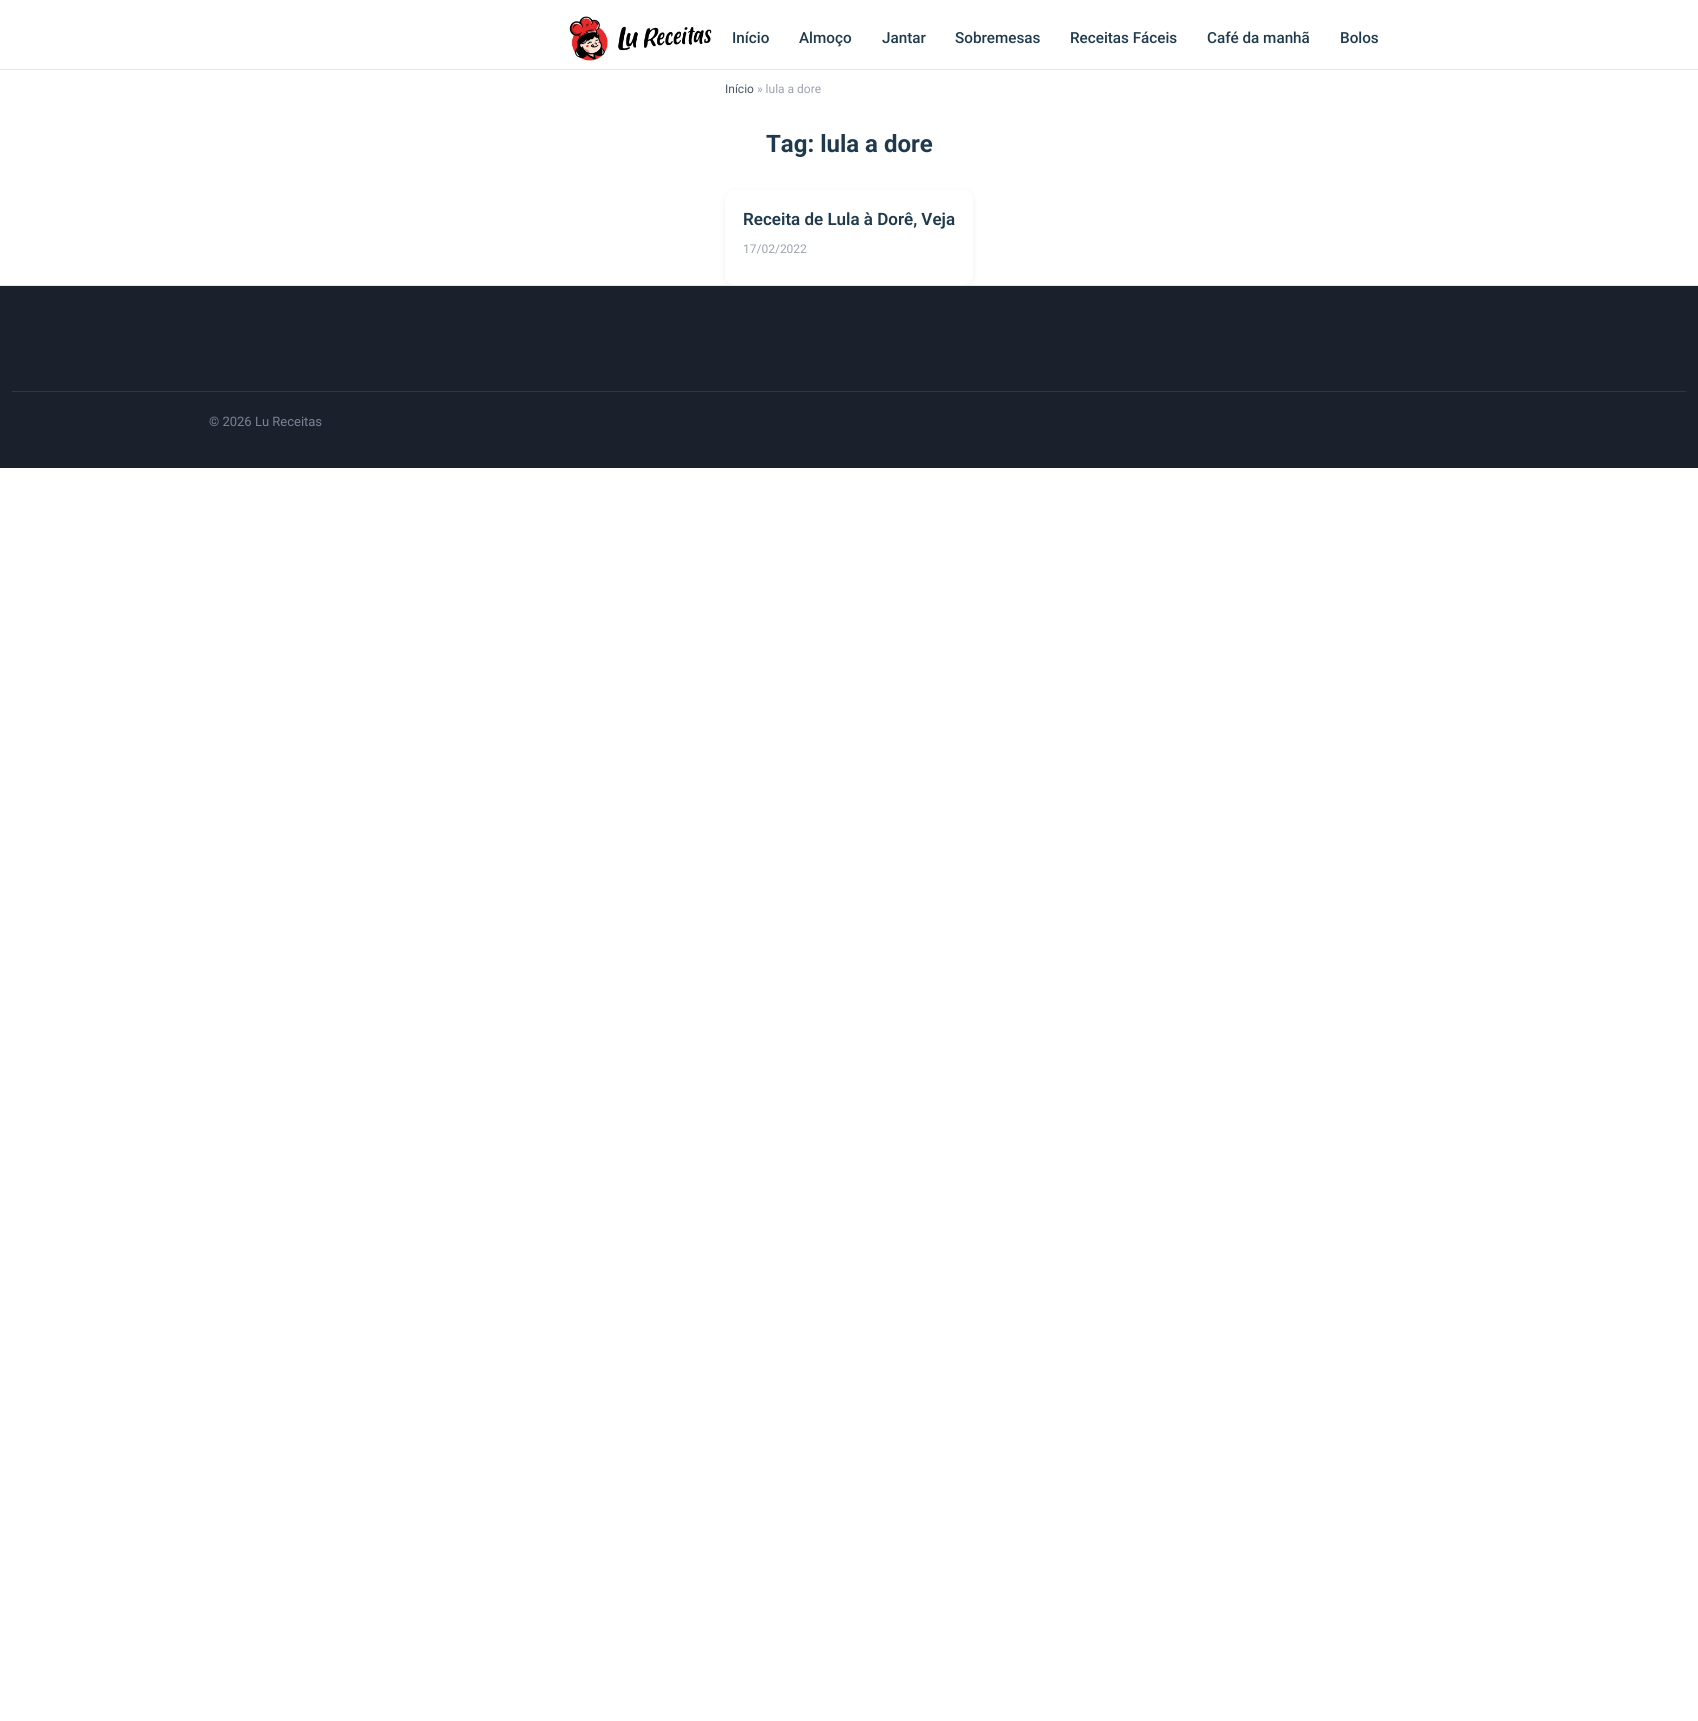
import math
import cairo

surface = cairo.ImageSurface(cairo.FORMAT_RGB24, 1698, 1721)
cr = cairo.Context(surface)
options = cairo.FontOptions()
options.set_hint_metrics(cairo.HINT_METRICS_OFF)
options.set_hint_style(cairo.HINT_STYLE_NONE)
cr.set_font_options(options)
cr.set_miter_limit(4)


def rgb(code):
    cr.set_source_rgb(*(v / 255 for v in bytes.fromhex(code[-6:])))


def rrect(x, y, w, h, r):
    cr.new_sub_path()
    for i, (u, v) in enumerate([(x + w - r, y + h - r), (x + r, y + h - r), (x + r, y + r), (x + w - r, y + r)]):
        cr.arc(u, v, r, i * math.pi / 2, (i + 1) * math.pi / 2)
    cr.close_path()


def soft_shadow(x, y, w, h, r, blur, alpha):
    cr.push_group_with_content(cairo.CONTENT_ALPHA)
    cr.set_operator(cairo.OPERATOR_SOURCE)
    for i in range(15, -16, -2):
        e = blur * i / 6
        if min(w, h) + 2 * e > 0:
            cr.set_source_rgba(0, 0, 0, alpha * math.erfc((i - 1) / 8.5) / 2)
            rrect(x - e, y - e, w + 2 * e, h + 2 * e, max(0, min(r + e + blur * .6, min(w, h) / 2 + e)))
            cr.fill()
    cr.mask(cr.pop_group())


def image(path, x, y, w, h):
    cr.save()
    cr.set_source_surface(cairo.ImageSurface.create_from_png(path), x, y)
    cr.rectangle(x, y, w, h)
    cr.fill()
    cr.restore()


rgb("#ffffff")
cr.paint()
rgb("#e5e7eb")
cr.rectangle(0, 69, 1698, 1)
cr.fill()
image("img/1.png", 569, 16, 143, 45)
rgb("#000000")
soft_shadow(725, 192, 248, 95, 10, 4, 0.06)
rgb("#ffffff")
rrect(725, 190, 248, 95, 10)
cr.fill()
for x, y, w, h, color in [
    (0, 286, 1698, 182, "#1a202c"),
    (0, 285, 1698, 1, "#e5e7eb"),
    (12, 391, 1674, 1, "#313641"),
]:
    rgb(color)
    cr.rectangle(x, y, w, h)
    cr.fill()
cr.select_font_face("Roboto Medium")
cr.set_font_size(15.25)
rgb("#1e3a4c")
for x, y, s in [
    (732, 43, "Início"),
    (799, 43, "Almoço"),
    (882, 43, "Jantar"),
    (955, 43, "Sobremesas"),
    (1070, 43, "Receitas Fáceis"),
    (1207, 43, "Café da manhã"),
    (1340, 43, "Bolos"),
]:
    cr.move_to(x, y)
    cr.show_text(s)
cr.select_font_face("Roboto")
cr.set_font_size(12)
rgb("#4a5568")
cr.move_to(725, 93)
cr.show_text("Início")
rgb("#9ca3af")
cr.move_to(757, 93)
cr.show_text("» lula a dore")
cr.select_font_face("Roboto", cairo.FONT_SLANT_NORMAL, cairo.FONT_WEIGHT_BOLD)
cr.set_font_size(24)
rgb("#1e3a4c")
cr.move_to(766, 152)
cr.show_text("Tag: lula a dore")
cr.select_font_face("Roboto SemiBold")
cr.set_font_size(17)
cr.move_to(743, 225)
cr.show_text("Receita de Lula à Dorê, Veja")
cr.select_font_face("Roboto")
cr.set_font_size(12)
rgb("#9ca3af")
cr.move_to(743, 253)
cr.show_text("17/02/2022")
cr.set_font_size(13)
rgb("#788394")
cr.move_to(209, 426)
cr.show_text("© 2026 Lu Receitas")
surface.write_to_png("page.png")
